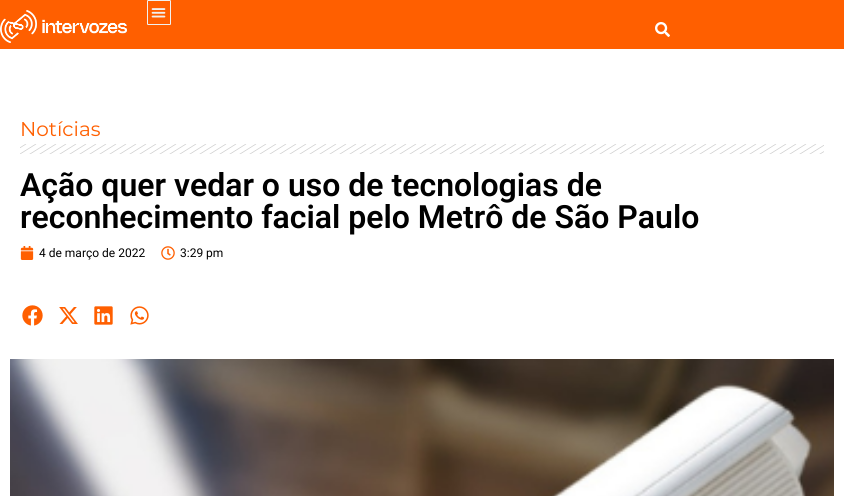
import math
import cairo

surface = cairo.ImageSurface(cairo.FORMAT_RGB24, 844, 496)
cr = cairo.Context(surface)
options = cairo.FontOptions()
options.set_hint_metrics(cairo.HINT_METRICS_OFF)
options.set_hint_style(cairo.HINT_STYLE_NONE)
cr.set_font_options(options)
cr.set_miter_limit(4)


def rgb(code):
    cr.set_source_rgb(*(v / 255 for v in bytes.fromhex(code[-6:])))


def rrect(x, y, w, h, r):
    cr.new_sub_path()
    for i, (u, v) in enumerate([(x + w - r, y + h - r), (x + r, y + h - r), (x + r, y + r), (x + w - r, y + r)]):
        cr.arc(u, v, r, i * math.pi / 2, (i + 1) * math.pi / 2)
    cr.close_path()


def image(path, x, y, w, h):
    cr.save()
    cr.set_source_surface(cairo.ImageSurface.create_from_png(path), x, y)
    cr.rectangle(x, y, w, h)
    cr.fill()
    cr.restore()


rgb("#ffffff")
cr.paint()
rgb("#ff5f00")
cr.rectangle(0, 0, 844, 49)
cr.fill()
image("img/1.png", 0, 10, 127, 33)
rrect(147.5, 0.5, 23, 24, 0.5)
rgb("#f0f0f0")
cr.set_line_width(1)
cr.stroke()
image("img/2.png", 151, 8, 15, 10)
image("img/3.png", 655, 22, 15, 15)
image("img/4.png", 20, 144, 804, 10)
image("img/5.png", 20, 246, 14, 14)
image("img/6.png", 161, 246, 14, 14)
image("img/7.png", 22, 305, 21, 21)
image("img/8.png", 59, 307, 19, 17)
image("img/9.png", 94, 306, 19, 19)
image("img/10.png", 130, 306, 19, 19)
image("img/11.png", 10, 359, 824, 137)
cr.select_font_face("Montserrat")
cr.set_font_size(20)
rgb("#ff5f00")
cr.move_to(20, 136)
cr.show_text("Notícias")
cr.select_font_face("Roboto SemiBold")
cr.set_font_size(32)
rgb("#000000")
cr.move_to(20, 196)
cr.show_text("Ação quer vedar o uso de tecnologias de")
cr.move_to(20, 228)
cr.show_text("reconhecimento facial pelo Metrô de São Paulo")
cr.select_font_face("Roboto")
cr.set_font_size(12)
cr.move_to(39, 257)
cr.show_text("4 de março de 2022")
cr.move_to(180, 257)
cr.show_text("3:29 pm")
surface.write_to_png("page.png")
